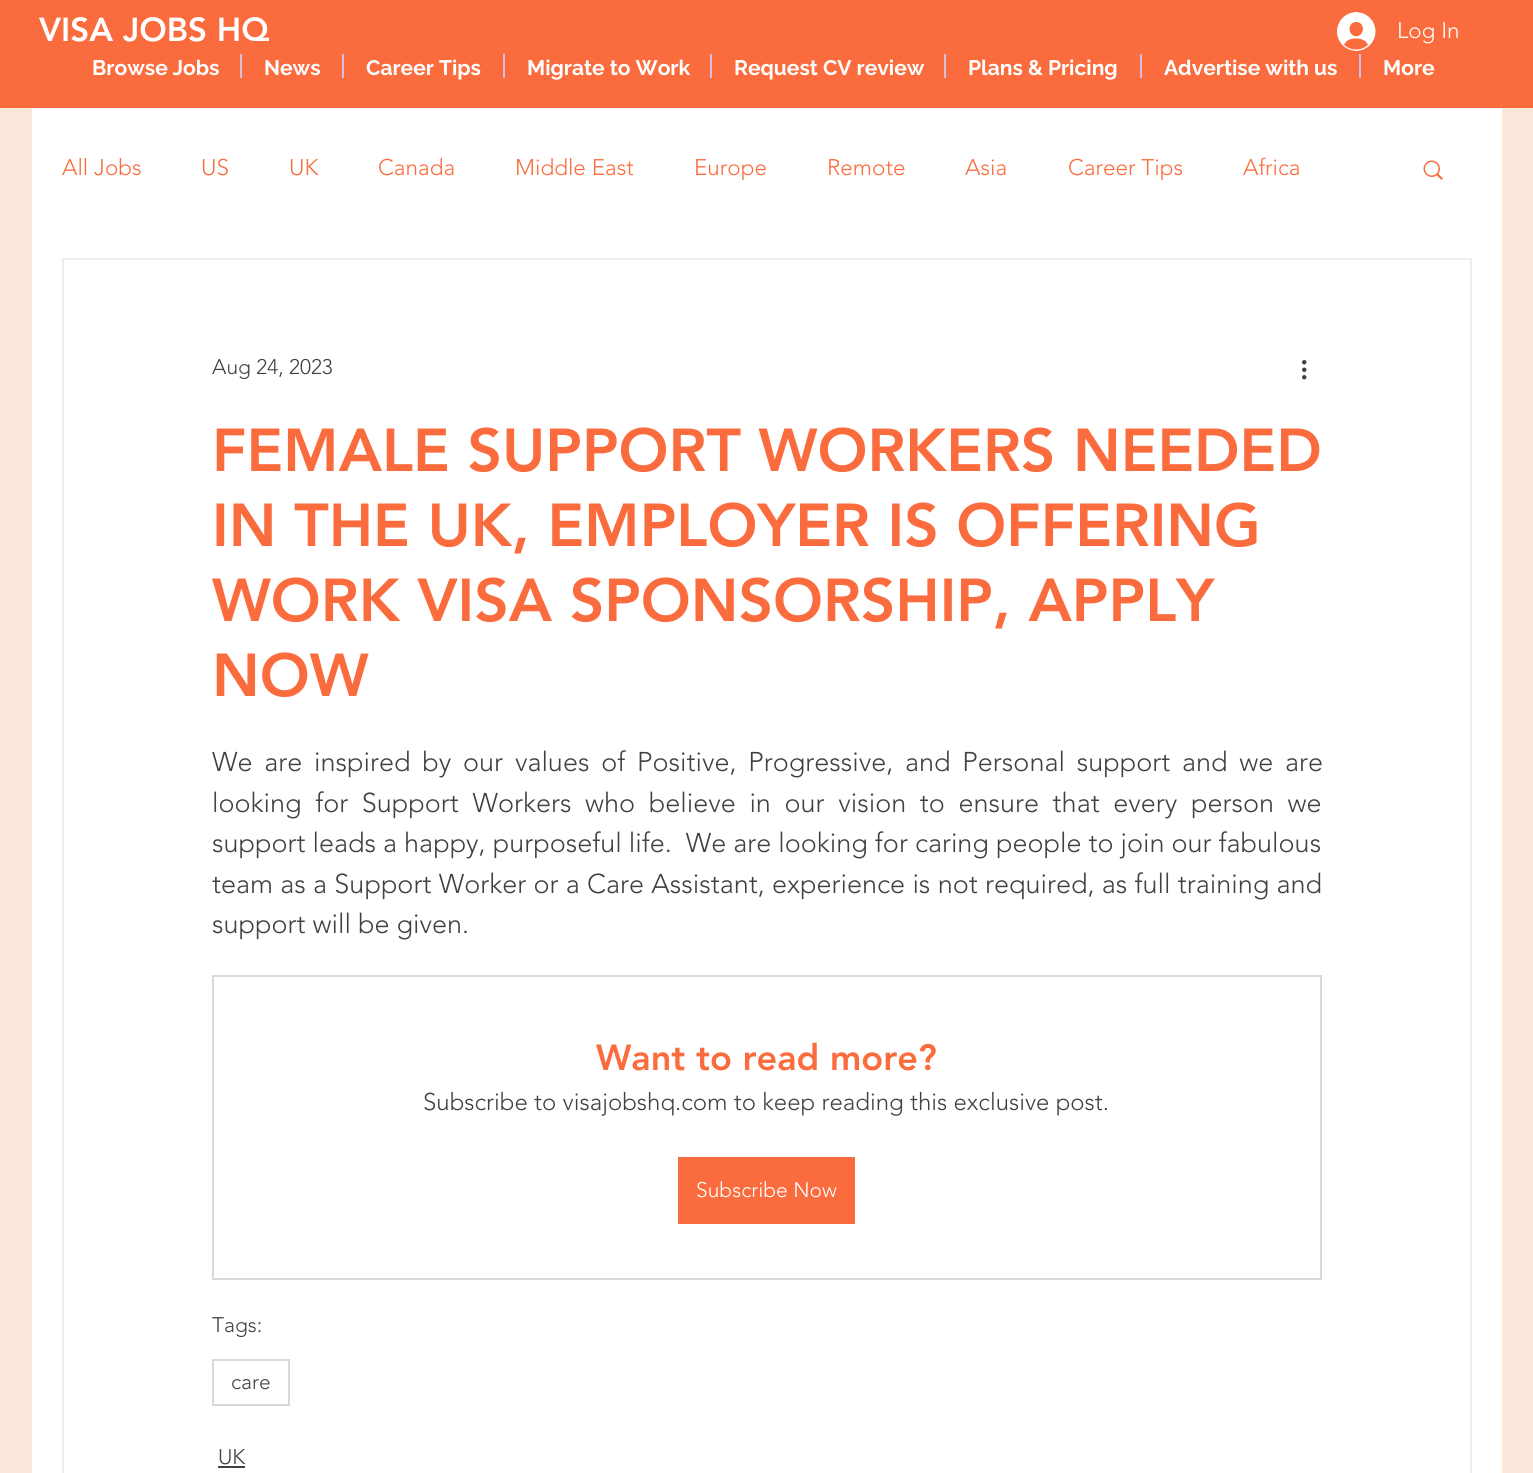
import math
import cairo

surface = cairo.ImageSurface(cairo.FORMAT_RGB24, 1533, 1473)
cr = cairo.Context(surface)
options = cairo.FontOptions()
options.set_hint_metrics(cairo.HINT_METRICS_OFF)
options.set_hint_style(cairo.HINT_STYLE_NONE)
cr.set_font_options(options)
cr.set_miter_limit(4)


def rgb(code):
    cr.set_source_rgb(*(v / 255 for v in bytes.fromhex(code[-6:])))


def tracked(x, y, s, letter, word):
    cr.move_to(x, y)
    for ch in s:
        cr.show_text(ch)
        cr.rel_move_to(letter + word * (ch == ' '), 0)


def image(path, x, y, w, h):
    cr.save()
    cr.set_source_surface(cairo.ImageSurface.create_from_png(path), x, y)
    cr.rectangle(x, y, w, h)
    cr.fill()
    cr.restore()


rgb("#fde6da")
cr.paint()
rgb("#fa6c3d")
cr.rectangle(0, 0, 1533, 108)
cr.fill()
image("img/1.png", 1337, 12, 39, 39)
for x, y, w, h, color in [
    (240, 54, 2, 24, "#d8bde2"),
    (342, 54, 2, 24, "#d8bde2"),
    (503, 54, 2, 24, "#d8bde2"),
    (710, 54, 2, 24, "#d8bde2"),
    (944, 54, 2, 24, "#d8bde2"),
    (1140, 54, 2, 24, "#d8bde2"),
    (1359, 54, 2, 24, "#d8bde2"),
    (32, 108, 1470, 1365, "#ffffff"),
]:
    rgb(color)
    cr.rectangle(x, y, w, h)
    cr.fill()
image("img/2.png", 1423, 160, 20, 20)
cr.rectangle(63, 259, 1408, 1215)
rgb("#eeecec")
cr.stroke()
image("img/3.png", 1302, 360, 5, 20)
cr.rectangle(213, 976, 1108, 303)
rgb("#d9d9d9")
cr.stroke()
rgb("#fa6c3d")
cr.rectangle(678, 1157, 177, 67)
cr.fill()
cr.rectangle(213, 1360, 76, 45)
rgb("#d9d9d9")
cr.stroke()
rgb("#414141")
cr.rectangle(218, 1466, 27, 2)
cr.fill()
cr.select_font_face("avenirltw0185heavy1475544 Black")
cr.set_font_size(33)
rgb("#ffffff")
cr.move_to(39, 41)
cr.show_text("VISA JOBS HQ")
cr.select_font_face("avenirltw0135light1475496 Light")
cr.set_font_size(22.5)
cr.move_to(1397, 38)
cr.show_text("Log In")
cr.select_font_face("Raleway", cairo.FONT_SLANT_NORMAL, cairo.FONT_WEIGHT_BOLD)
cr.set_font_size(21)
for x, y, s in [
    (92, 75, "Browse Jobs"),
    (264, 75, "News"),
    (366, 75, "Career Tips"),
    (527, 75, "Migrate to Work"),
    (734, 75, "Request CV review"),
    (968, 75, "Plans & Pricing"),
    (1164, 75, "Advertise with us"),
    (1383, 75, "More"),
]:
    cr.move_to(x, y)
    cr.show_text(s)
cr.select_font_face("avenirltw0135light1475496 Light")
cr.set_font_size(22.5)
rgb("#fa6c3d")
for x, y, s in [
    (62, 175, "All Jobs"),
    (201, 175, "US"),
    (289, 175, "UK"),
    (378, 175, "Canada"),
    (515, 175, "Middle East"),
    (694, 175, "Europe"),
    (827, 175, "Remote"),
    (965, 175, "Asia"),
    (1068, 175, "Career Tips"),
    (1243, 175, "Africa"),
]:
    cr.move_to(x, y)
    cr.show_text(s)
cr.set_font_size(21)
rgb("#414141")
cr.move_to(212, 374)
cr.show_text("Aug 24, 2023")
cr.select_font_face("avenirltw0185heavy1475544 Black")
cr.set_font_size(60)
rgb("#fa6c3d")
for x, y, s in [
    (212, 471, "FEMALE SUPPORT WORKERS NEEDED"),
    (212, 546, "IN THE UK, EMPLOYER IS OFFERING"),
    (212, 621, "WORK VISA SPONSORSHIP, APPLY"),
    (212, 696, "NOW"),
]:
    cr.move_to(x, y)
    cr.show_text(s)
cr.select_font_face("avenirltw0135light1475496 Light")
cr.set_font_size(27)
rgb("#414141")
tracked(212, 771, "We are inspired by our values of Positive, Progressive, and Personal support and we are", 0, 4.75)
tracked(212, 812, "looking for Support Workers who believe in our vision to ensure that every person we", 0, 6.6)
cr.move_to(212, 852)
cr.show_text("support leads a happy, purposeful life.  We are looking for caring people to join our fabulous")
tracked(212, 893, "team as a Support Worker or a Care Assistant, experience is not required, as full training and", 0, 0.25)
cr.move_to(212, 933)
cr.show_text("support will be given.")
cr.select_font_face("avenirltw0185heavy1475544 Black")
cr.set_font_size(36)
rgb("#fa6c3d")
cr.move_to(596, 1070)
cr.show_text("Want to read more?")
cr.select_font_face("avenirltw0135light1475496 Light")
cr.set_font_size(24)
rgb("#414141")
cr.move_to(423, 1110)
cr.show_text("Subscribe to visajobshq.com to keep reading this exclusive post.")
cr.set_font_size(21)
rgb("#ffffff")
cr.move_to(696, 1197)
cr.show_text("Subscribe Now")
rgb("#414141")
for x, y, s in [
    (212, 1332, "Tags:"),
    (231, 1389, "care"),
    (218, 1464, "UK"),
]:
    cr.move_to(x, y)
    cr.show_text(s)
surface.write_to_png("page.png")
